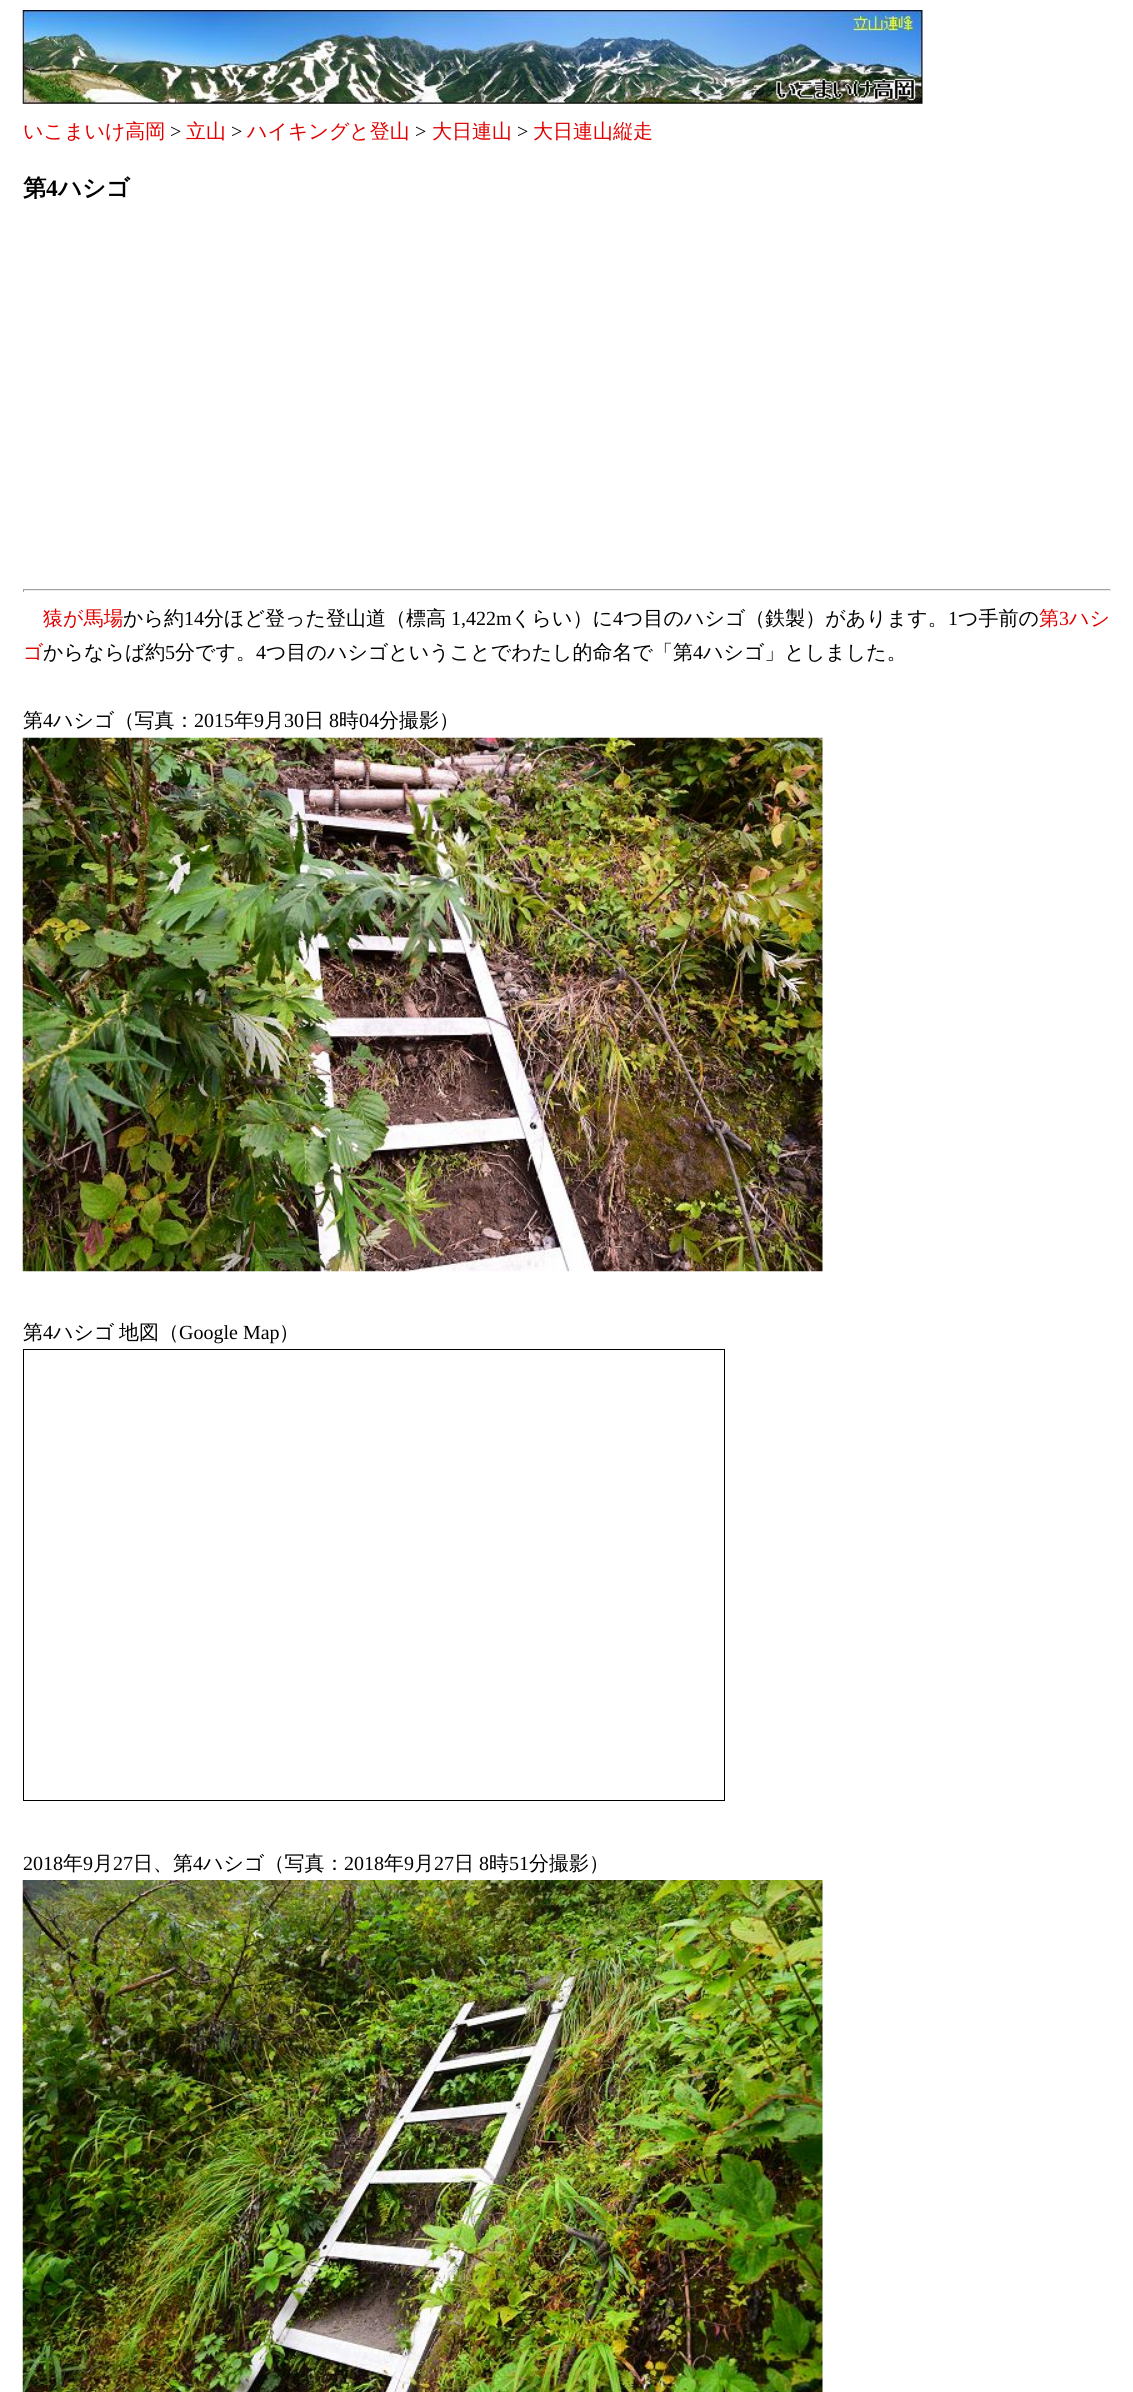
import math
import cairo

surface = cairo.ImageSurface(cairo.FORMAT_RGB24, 1133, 2392)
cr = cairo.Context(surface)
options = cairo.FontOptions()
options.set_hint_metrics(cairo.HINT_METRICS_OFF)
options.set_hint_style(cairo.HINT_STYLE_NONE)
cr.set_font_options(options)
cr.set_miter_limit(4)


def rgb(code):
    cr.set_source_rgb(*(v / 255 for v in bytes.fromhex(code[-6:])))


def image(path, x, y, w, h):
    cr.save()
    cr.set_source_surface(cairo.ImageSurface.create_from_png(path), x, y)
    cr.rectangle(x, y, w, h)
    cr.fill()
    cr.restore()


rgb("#ffffff")
cr.paint()
image("img/1.png", 22, 10, 901, 94)
for x, y, w, h, color in [
    (23, 589, 1088, 1, "#9f9f9f"),
    (1110, 589, 1, 3, "#eeeeee"),
    (23, 590, 1088, 1, "#eeeeee"),
    (23, 589, 1, 3, "#9f9f9f"),
]:
    rgb(color)
    cr.rectangle(x, y, w, h)
    cr.fill()
image("img/2.png", 22, 737, 801, 535)
cr.rectangle(23.5, 1349.5, 701, 451)
rgb("#000000")
cr.set_line_width(1)
cr.stroke()
image("img/3.png", 22, 1880, 801, 512)
cr.select_font_face("WenQuanYi Zen Hei Medium")
cr.set_font_size(20)
rgb("#e00000")
cr.move_to(23, 138)
cr.show_text("いこまいけ高岡")
cr.select_font_face("Liberation Serif")
rgb("#000000")
cr.move_to(170, 138)
cr.show_text(">")
cr.select_font_face("WenQuanYi Zen Hei Medium")
rgb("#e00000")
cr.move_to(186, 138)
cr.show_text("立山")
cr.select_font_face("Liberation Serif")
rgb("#000000")
cr.move_to(231, 138)
cr.show_text(">")
cr.select_font_face("WenQuanYi Zen Hei Medium")
rgb("#e00000")
cr.move_to(247, 138)
cr.show_text("ハイキングと登山")
cr.select_font_face("Liberation Serif")
rgb("#000000")
cr.move_to(415, 138)
cr.show_text(">")
cr.select_font_face("WenQuanYi Zen Hei Medium")
rgb("#e00000")
cr.move_to(432, 138)
cr.show_text("大日連山")
cr.select_font_face("Liberation Serif")
rgb("#000000")
cr.move_to(517, 138)
cr.show_text(">")
cr.select_font_face("WenQuanYi Zen Hei Medium")
rgb("#e00000")
cr.move_to(533, 138)
cr.show_text("大日連山縦走")
cr.select_font_face("WenQuanYi Zen Hei", cairo.FONT_SLANT_NORMAL, cairo.FONT_WEIGHT_BOLD)
cr.set_font_size(23.5)
rgb("#000000")
cr.move_to(23, 196)
cr.show_text("第")
cr.select_font_face("Liberation Serif", cairo.FONT_SLANT_NORMAL, cairo.FONT_WEIGHT_BOLD)
cr.move_to(46, 196)
cr.show_text("4")
cr.select_font_face("WenQuanYi Zen Hei", cairo.FONT_SLANT_NORMAL, cairo.FONT_WEIGHT_BOLD)
cr.move_to(58, 196)
cr.show_text("ハシゴ")
cr.select_font_face("WenQuanYi Zen Hei Medium")
cr.set_font_size(20)
rgb("#e00000")
cr.move_to(43, 625)
cr.show_text("猿が馬場")
rgb("#000000")
cr.move_to(123, 625)
cr.show_text("から約")
cr.select_font_face("Liberation Serif")
cr.move_to(184, 625)
cr.show_text("14")
cr.select_font_face("WenQuanYi Zen Hei Medium")
cr.move_to(204, 625)
cr.show_text("分ほど登った登山道（標高")
cr.select_font_face("Liberation Serif")
cr.move_to(451, 625)
cr.show_text("1,422m")
cr.select_font_face("WenQuanYi Zen Hei Medium")
cr.move_to(511, 625)
cr.show_text("くらい）に")
cr.select_font_face("Liberation Serif")
cr.move_to(613, 625)
cr.show_text("4")
cr.select_font_face("WenQuanYi Zen Hei Medium")
cr.move_to(623, 625)
cr.show_text("つ目のハシゴ（鉄製）があります。")
cr.select_font_face("Liberation Serif")
cr.move_to(948, 625)
cr.show_text("1")
cr.select_font_face("WenQuanYi Zen Hei Medium")
cr.move_to(958, 625)
cr.show_text("つ手前の")
rgb("#e00000")
cr.move_to(1039, 625)
cr.show_text("第")
cr.select_font_face("Liberation Serif")
cr.move_to(1059, 625)
cr.show_text("3")
cr.select_font_face("WenQuanYi Zen Hei Medium")
cr.move_to(1069, 625)
cr.show_text("ハシ")
cr.move_to(23, 659)
cr.show_text("ゴ")
rgb("#000000")
cr.move_to(43, 659)
cr.show_text("からならば約")
cr.select_font_face("Liberation Serif")
cr.move_to(165, 659)
cr.show_text("5")
cr.select_font_face("WenQuanYi Zen Hei Medium")
cr.move_to(175, 659)
cr.show_text("分です。")
cr.select_font_face("Liberation Serif")
cr.move_to(256, 659)
cr.show_text("4")
cr.select_font_face("WenQuanYi Zen Hei Medium")
cr.move_to(266, 659)
cr.show_text("つ目のハシゴということでわたし的命名で「第")
cr.select_font_face("Liberation Serif")
cr.move_to(693, 659)
cr.show_text("4")
cr.select_font_face("WenQuanYi Zen Hei Medium")
cr.move_to(703, 659)
cr.show_text("ハシゴ」としました。")
cr.move_to(23, 727)
cr.show_text("第")
cr.select_font_face("Liberation Serif")
cr.move_to(43, 727)
cr.show_text("4")
cr.select_font_face("WenQuanYi Zen Hei Medium")
cr.move_to(53, 727)
cr.show_text("ハシゴ（写真：")
cr.select_font_face("Liberation Serif")
cr.move_to(194, 727)
cr.show_text("2015")
cr.select_font_face("WenQuanYi Zen Hei Medium")
cr.move_to(234, 727)
cr.show_text("年")
cr.select_font_face("Liberation Serif")
cr.move_to(254, 727)
cr.show_text("9")
cr.select_font_face("WenQuanYi Zen Hei Medium")
cr.move_to(264, 727)
cr.show_text("月")
cr.select_font_face("Liberation Serif")
cr.move_to(284, 727)
cr.show_text("30")
cr.select_font_face("WenQuanYi Zen Hei Medium")
cr.move_to(304, 727)
cr.show_text("日")
cr.select_font_face("Liberation Serif")
cr.move_to(329, 727)
cr.show_text("8")
cr.select_font_face("WenQuanYi Zen Hei Medium")
cr.move_to(339, 727)
cr.show_text("時")
cr.select_font_face("Liberation Serif")
cr.move_to(359, 727)
cr.show_text("04")
cr.select_font_face("WenQuanYi Zen Hei Medium")
cr.move_to(379, 727)
cr.show_text("分撮影）")
cr.move_to(23, 1339)
cr.show_text("第")
cr.select_font_face("Liberation Serif")
cr.move_to(43, 1339)
cr.show_text("4")
cr.select_font_face("WenQuanYi Zen Hei Medium")
cr.move_to(53, 1339)
cr.show_text("ハシゴ")
cr.move_to(119, 1339)
cr.show_text("地図（")
cr.select_font_face("Liberation Serif")
cr.move_to(179, 1339)
cr.show_text("Google Map")
cr.select_font_face("WenQuanYi Zen Hei Medium")
cr.move_to(279, 1339)
cr.show_text("）")
cr.select_font_face("Liberation Serif")
cr.move_to(23, 1870)
cr.show_text("2018")
cr.select_font_face("WenQuanYi Zen Hei Medium")
cr.move_to(63, 1870)
cr.show_text("年")
cr.select_font_face("Liberation Serif")
cr.move_to(83, 1870)
cr.show_text("9")
cr.select_font_face("WenQuanYi Zen Hei Medium")
cr.move_to(93, 1870)
cr.show_text("月")
cr.select_font_face("Liberation Serif")
cr.move_to(113, 1870)
cr.show_text("27")
cr.select_font_face("WenQuanYi Zen Hei Medium")
cr.move_to(133, 1870)
cr.show_text("日、第")
cr.select_font_face("Liberation Serif")
cr.move_to(193, 1870)
cr.show_text("4")
cr.select_font_face("WenQuanYi Zen Hei Medium")
cr.move_to(203, 1870)
cr.show_text("ハシゴ（写真：")
cr.select_font_face("Liberation Serif")
cr.move_to(344, 1870)
cr.show_text("2018")
cr.select_font_face("WenQuanYi Zen Hei Medium")
cr.move_to(384, 1870)
cr.show_text("年")
cr.select_font_face("Liberation Serif")
cr.move_to(404, 1870)
cr.show_text("9")
cr.select_font_face("WenQuanYi Zen Hei Medium")
cr.move_to(414, 1870)
cr.show_text("月")
cr.select_font_face("Liberation Serif")
cr.move_to(434, 1870)
cr.show_text("27")
cr.select_font_face("WenQuanYi Zen Hei Medium")
cr.move_to(454, 1870)
cr.show_text("日")
cr.select_font_face("Liberation Serif")
cr.move_to(479, 1870)
cr.show_text("8")
cr.select_font_face("WenQuanYi Zen Hei Medium")
cr.move_to(489, 1870)
cr.show_text("時")
cr.select_font_face("Liberation Serif")
cr.move_to(509, 1870)
cr.show_text("51")
cr.select_font_face("WenQuanYi Zen Hei Medium")
cr.move_to(529, 1870)
cr.show_text("分撮影）")
surface.write_to_png("page.png")
